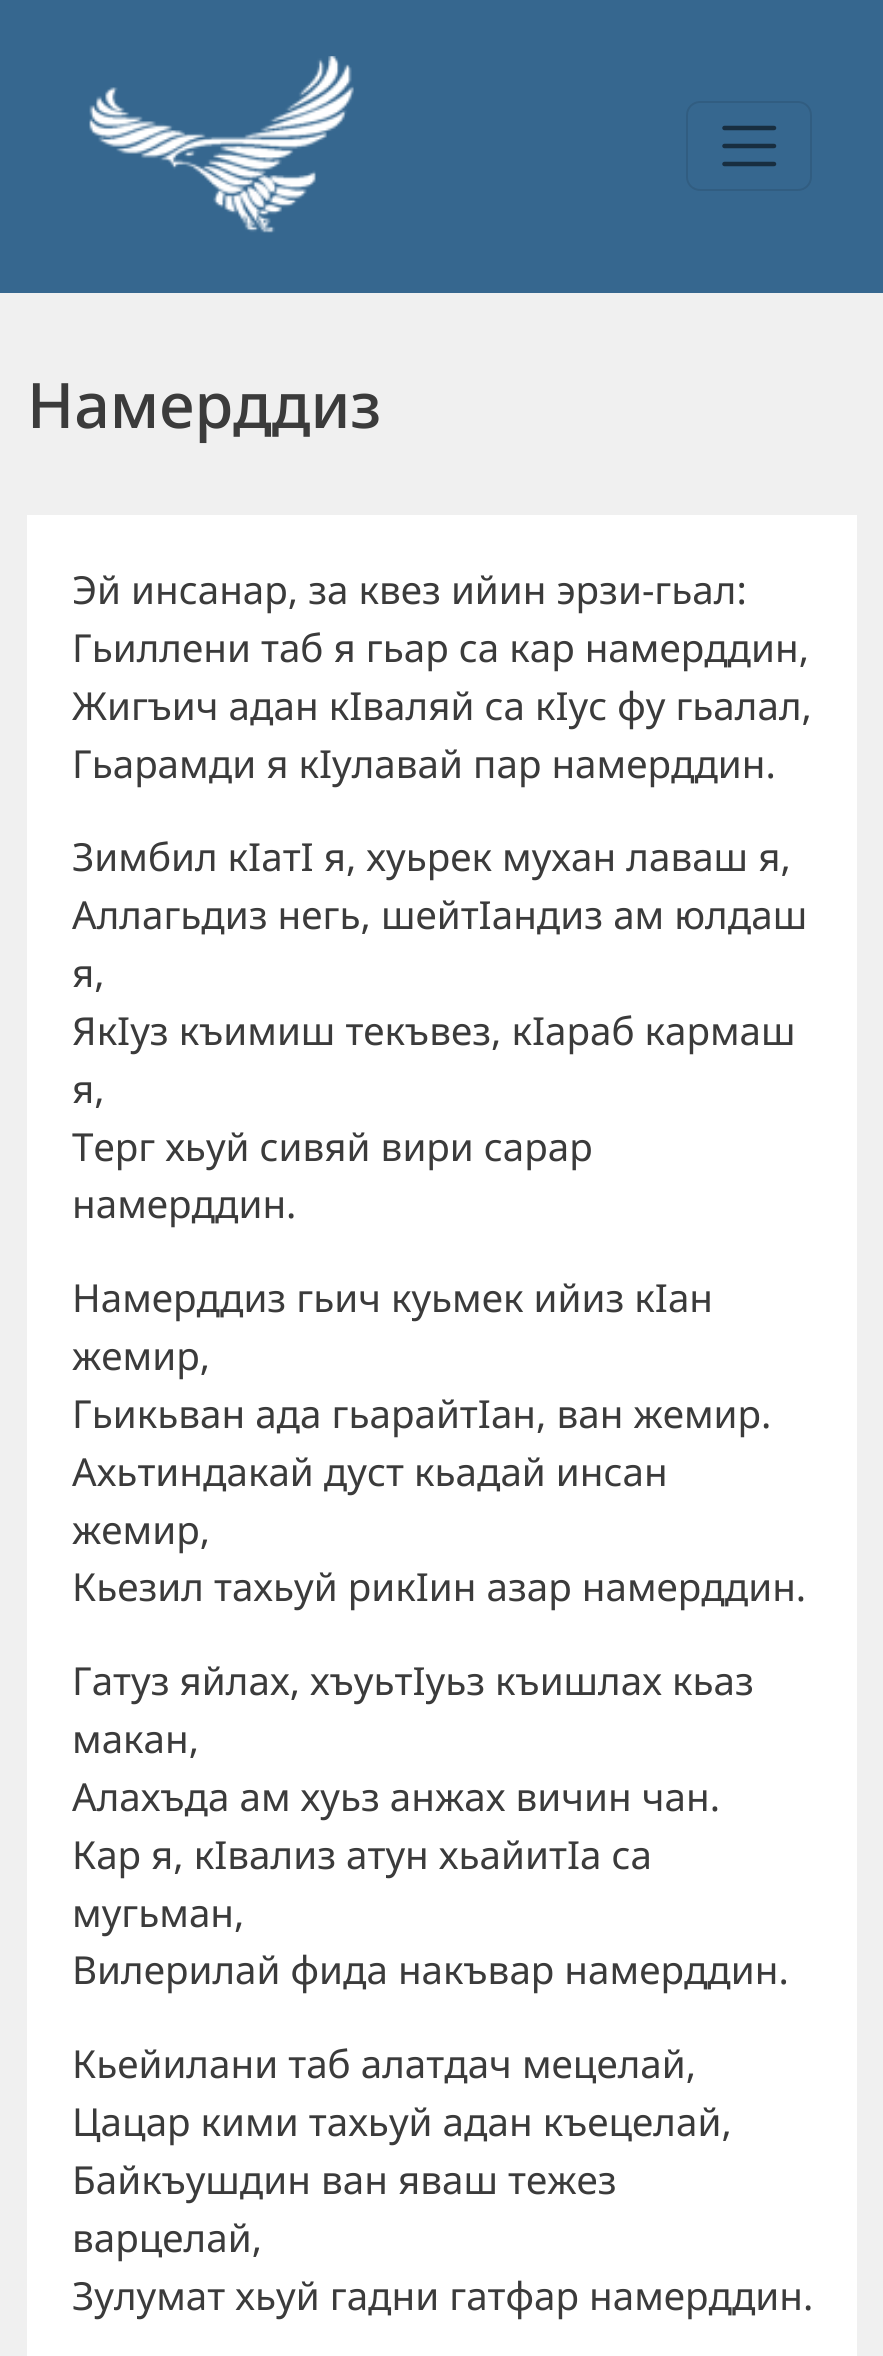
import math
import cairo

surface = cairo.ImageSurface(cairo.FORMAT_RGB24, 883, 2356)
cr = cairo.Context(surface)
options = cairo.FontOptions()
options.set_hint_metrics(cairo.HINT_METRICS_OFF)
options.set_hint_style(cairo.HINT_STYLE_NONE)
cr.set_font_options(options)
cr.set_miter_limit(4)


def rgb(code):
    cr.set_source_rgb(*(v / 255 for v in bytes.fromhex(code[-6:])))


def rrect(x, y, w, h, r):
    cr.new_sub_path()
    for i, (u, v) in enumerate([(x + w - r, y + h - r), (x + r, y + h - r), (x + r, y + r), (x + w - r, y + r)]):
        cr.arc(u, v, r, i * math.pi / 2, (i + 1) * math.pi / 2)
    cr.close_path()


def image(path, x, y, w, h):
    cr.save()
    cr.set_source_surface(cairo.ImageSurface.create_from_png(path), x, y)
    cr.rectangle(x, y, w, h)
    cr.fill()
    cr.restore()


rgb("#f0f0f0")
cr.paint()
rgb("#36678f")
cr.rectangle(0, 0, 883, 293)
cr.fill()
image("img/1.png", 89, 56, 265, 177)
rrect(687, 102, 124, 88, 13)
rgb("#315d81")
cr.stroke()
cr.new_path()
cr.move_to(724.5, 128)
cr.line_to(774, 128)
cr.move_to(724.5, 146)
cr.line_to(774, 146)
cr.move_to(724.5, 164)
cr.line_to(774, 164)
rgb("#182e40")
cr.set_line_width(4.5)
cr.set_line_cap(cairo.LINE_CAP_ROUND)
cr.stroke()
rgb("#ffffff")
cr.rectangle(27, 515, 830, 1841)
cr.fill()
cr.select_font_face("Noto Sans Medium")
cr.set_font_size(62.75)
rgb("#3b3b3b")
cr.move_to(27, 428)
cr.show_text("Намерддиз")
cr.select_font_face("Noto Sans")
cr.set_font_size(38.6)
for x, y, s in [
    (72, 604, "Эй инсанар, за квез ийин эрзи-гьал:"),
    (72, 662, "Гьиллени таб я гьар са кар намерддин,"),
    (72, 720, "Жигъич адан кIваляй са кIус фу гьалал,"),
    (72, 778, "Гьарамди я кIулавай пар намерддин."),
    (72, 871, "Зимбил кIатI я, хуьрек мухан лаваш я,"),
    (72, 929, "Аллагьдиз негь, шейтIандиз ам юлдаш"),
    (72, 987, "я,"),
    (72, 1045, "ЯкIуз къимиш текъвез, кIараб кармаш"),
    (72, 1103, "я,"),
    (72, 1161, "Терг хьуй сивяй вири сарар"),
    (72, 1218, "намерддин."),
    (72, 1312, "Намерддиз гьич куьмек ийиз кIан"),
    (72, 1370, "жемир,"),
    (72, 1428, "Гьикьван ада гьарайтIан, ван жемир."),
    (72, 1486, "Ахьтиндакай дуст кьадай инсан"),
    (72, 1544, "жемир,"),
    (72, 1601, "Кьезил тахьуй рикIин азар намерддин."),
    (72, 1695, "Гатуз яйлах, хъуьтIуьз къишлах кьаз"),
    (72, 1753, "макан,"),
    (72, 1811, "Алахъда ам хуьз анжах вичин чан."),
    (72, 1869, "Кар я, кIвализ атун хьайитIа са"),
    (72, 1927, "мугьман,"),
    (72, 1984, "Вилерилай фида накъвар намерддин."),
    (72, 2078, "Кьейилани таб алатдач мецелай,"),
    (72, 2136, "Цацар кими тахьуй адан къецелай,"),
    (72, 2194, "Байкъушдин ван яваш тежез"),
    (72, 2252, "варцелай,"),
    (72, 2310, "Зулумат хьуй гадни гатфар намерддин."),
]:
    cr.move_to(x, y)
    cr.show_text(s)
surface.write_to_png("page.png")
